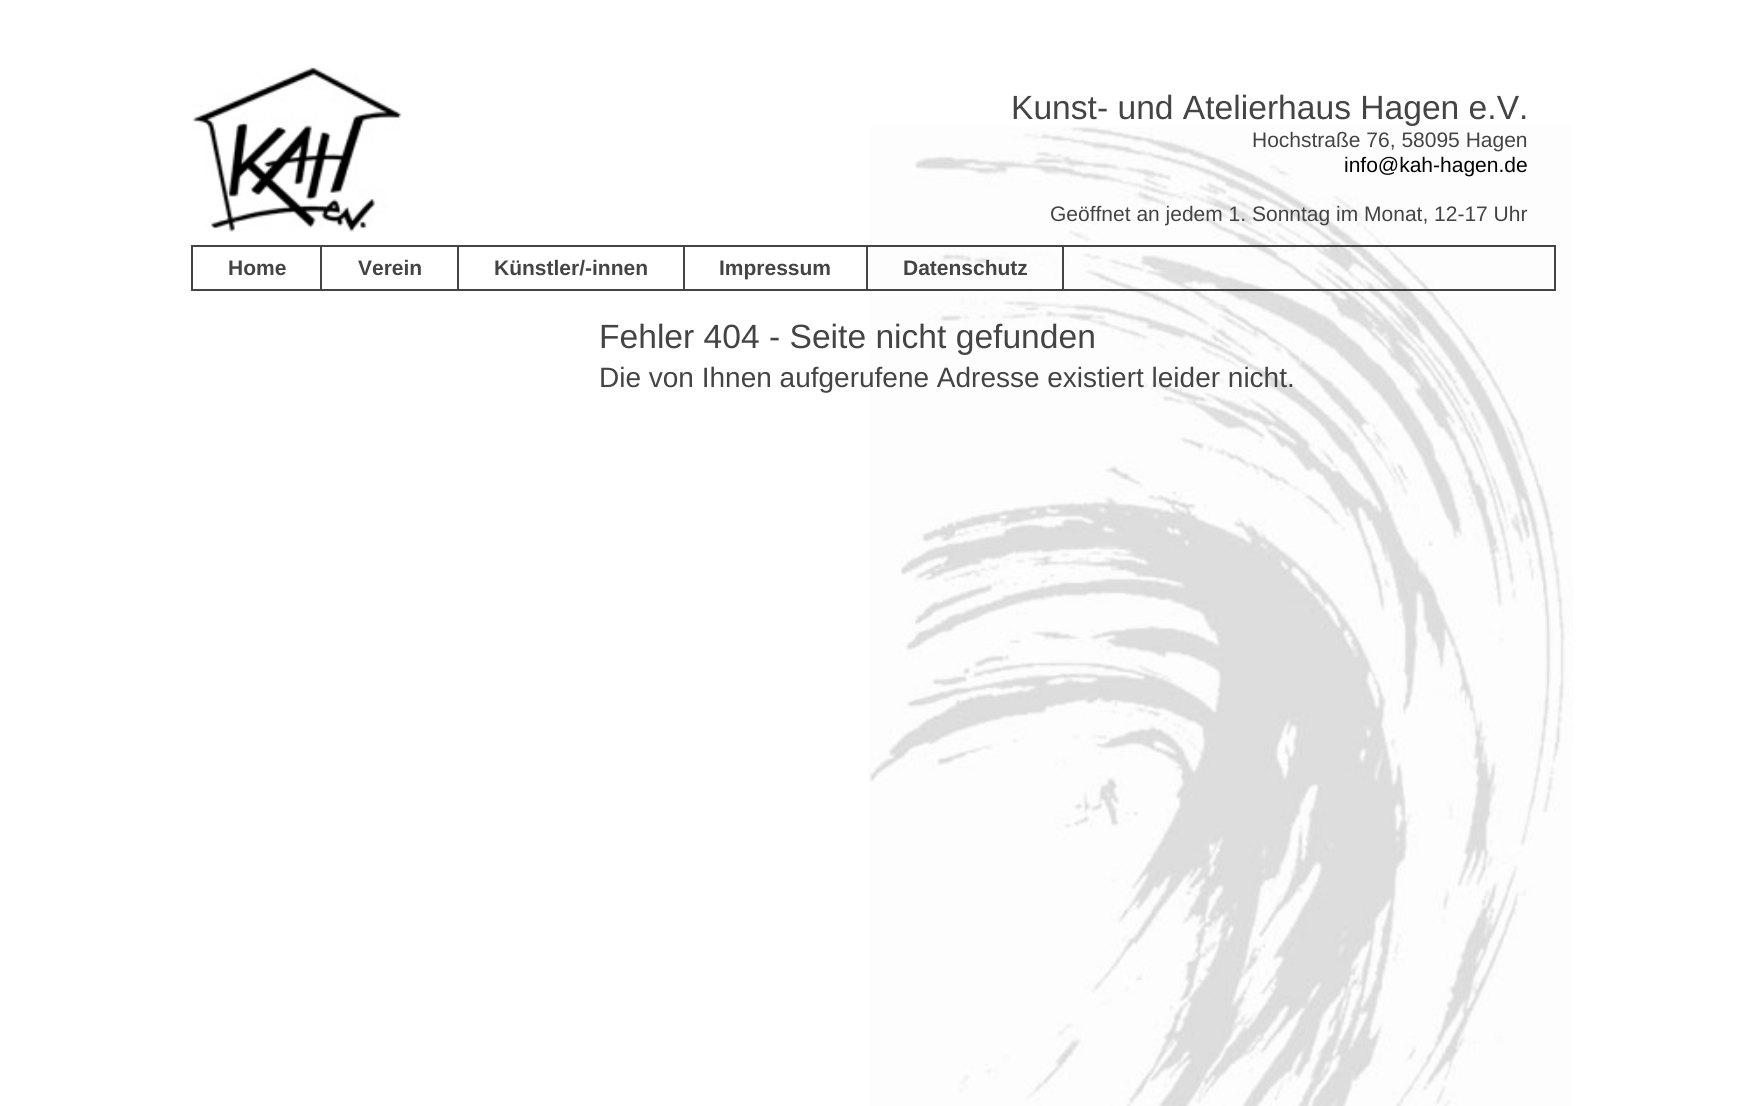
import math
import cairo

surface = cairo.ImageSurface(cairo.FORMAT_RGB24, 1746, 1106)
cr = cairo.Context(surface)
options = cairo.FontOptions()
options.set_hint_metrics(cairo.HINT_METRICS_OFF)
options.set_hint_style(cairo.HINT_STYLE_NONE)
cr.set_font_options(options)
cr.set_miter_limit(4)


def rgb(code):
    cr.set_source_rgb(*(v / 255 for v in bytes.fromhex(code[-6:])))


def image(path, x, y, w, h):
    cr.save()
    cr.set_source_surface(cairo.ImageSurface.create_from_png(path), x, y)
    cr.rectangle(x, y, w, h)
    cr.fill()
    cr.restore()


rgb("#ffffff")
cr.paint()
image("img/1.png", 869, 126, 704, 980)
image("img/2.png", 192, 67, 210, 165)
cr.rectangle(192, 246, 1363, 44)
rgb("#444444")
cr.stroke()
for x, y, w, h, color in [
    (320, 247, 2, 42, "#444444"),
    (457, 247, 2, 42, "#444444"),
    (683, 247, 2, 42, "#444444"),
    (866, 247, 2, 42, "#444444"),
    (1062, 247, 2, 42, "#444444"),
]:
    rgb(color)
    cr.rectangle(x, y, w, h)
    cr.fill()
cr.select_font_face("Liberation Sans")
cr.set_font_size(33.6)
cr.move_to(1011, 119)
cr.show_text("Kunst- und Atelierhaus Hagen e.V.")
cr.set_font_size(21)
cr.move_to(1252, 147)
cr.show_text("Hochstraße 76, 58095 Hagen")
rgb("#000000")
cr.move_to(1344, 172)
cr.show_text("info@kah-hagen.de")
rgb("#444444")
cr.move_to(1050, 221)
cr.show_text("Geöffnet an jedem 1. Sonntag im Monat, 12-17 Uhr")
cr.select_font_face("Liberation Sans", cairo.FONT_SLANT_NORMAL, cairo.FONT_WEIGHT_BOLD)
for x, y, s in [
    (228, 275, "Home"),
    (358, 275, "Verein"),
    (494, 275, "Künstler/-innen"),
    (719, 275, "Impressum"),
    (903, 275, "Datenschutz"),
]:
    cr.move_to(x, y)
    cr.show_text(s)
cr.select_font_face("Liberation Sans")
cr.set_font_size(33.6)
cr.move_to(599, 348)
cr.show_text("Fehler 404 - Seite nicht gefunden")
cr.set_font_size(28)
cr.move_to(599, 387)
cr.show_text("Die von Ihnen aufgerufene Adresse existiert leider nicht.")
surface.write_to_png("page.png")
